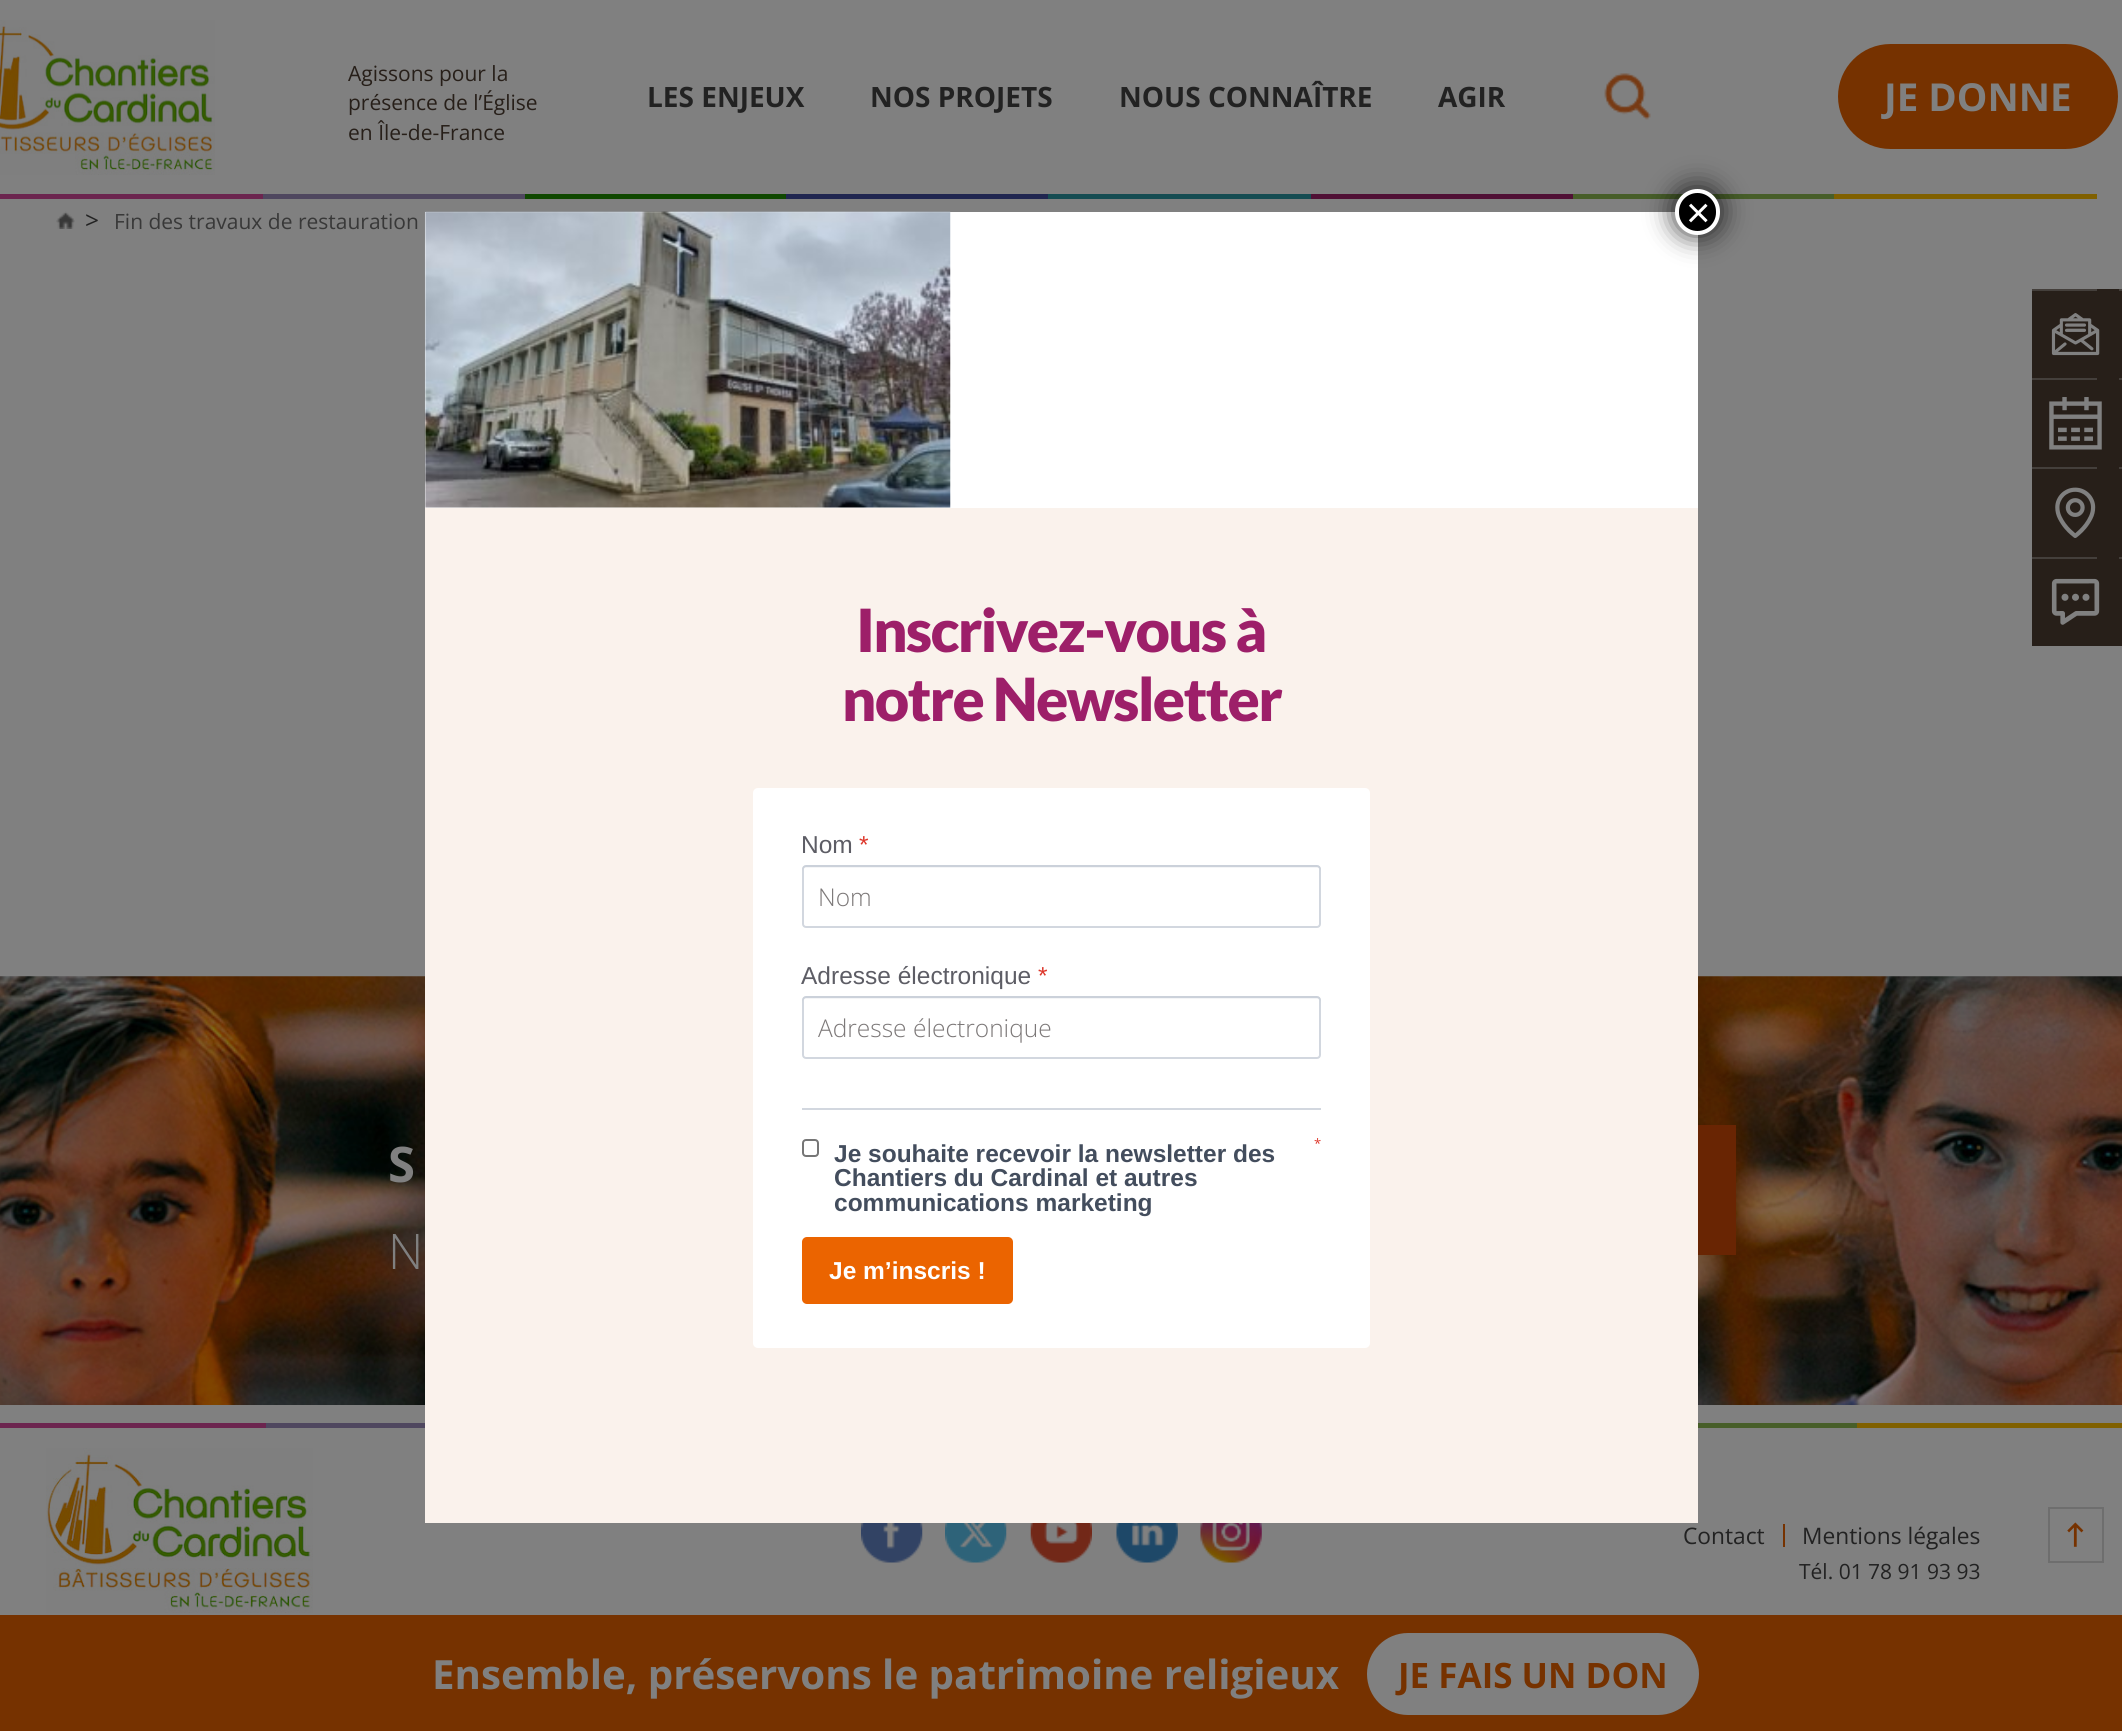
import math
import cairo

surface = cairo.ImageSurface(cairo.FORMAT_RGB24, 2122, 1731)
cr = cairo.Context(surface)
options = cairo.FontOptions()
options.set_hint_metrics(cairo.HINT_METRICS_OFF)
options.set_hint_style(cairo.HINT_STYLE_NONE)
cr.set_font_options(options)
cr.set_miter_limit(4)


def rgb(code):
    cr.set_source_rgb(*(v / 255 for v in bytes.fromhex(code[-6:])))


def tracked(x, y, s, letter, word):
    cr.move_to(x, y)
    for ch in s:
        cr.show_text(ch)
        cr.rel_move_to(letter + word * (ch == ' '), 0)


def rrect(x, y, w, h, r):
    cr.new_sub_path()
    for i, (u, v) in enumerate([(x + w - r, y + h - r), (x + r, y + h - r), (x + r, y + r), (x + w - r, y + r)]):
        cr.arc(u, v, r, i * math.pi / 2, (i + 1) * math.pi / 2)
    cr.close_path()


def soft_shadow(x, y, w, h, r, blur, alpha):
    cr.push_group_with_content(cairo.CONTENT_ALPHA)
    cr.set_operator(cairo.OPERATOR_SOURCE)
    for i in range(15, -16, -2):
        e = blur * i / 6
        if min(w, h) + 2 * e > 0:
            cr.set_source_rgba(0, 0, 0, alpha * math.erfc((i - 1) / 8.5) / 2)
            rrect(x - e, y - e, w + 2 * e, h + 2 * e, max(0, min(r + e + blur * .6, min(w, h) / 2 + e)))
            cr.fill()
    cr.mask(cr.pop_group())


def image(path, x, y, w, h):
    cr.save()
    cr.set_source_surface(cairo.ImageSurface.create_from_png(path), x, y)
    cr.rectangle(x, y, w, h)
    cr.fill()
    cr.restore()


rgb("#808080")
cr.paint()
image("img/1.png", 0, 20, 215, 155)
image("img/2.png", 1604, 73, 47, 47)
rgb("#763200")
rrect(1840, 46, 276, 101, 50.5)
cr.fill_preserve()
cr.set_line_width(4)
cr.stroke()
for x, y, w, h, color in [
    (0, 194, 263, 5, "#6c254f"),
    (263, 194, 262, 5, "#4f475f"),
    (525, 194, 261, 5, "#0f4800"),
    (786, 194, 262, 5, "#202650"),
    (1048, 194, 263, 5, "#154c52"),
    (1311, 194, 262, 5, "#501035"),
    (1573, 194, 261, 5, "#475e29"),
    (1834, 194, 263, 5, "#806000"),
]:
    rgb(color)
    cr.rectangle(x, y, w, h)
    cr.fill()
image("img/3.png", 56, 211, 19, 18)
rgb("#ffffff")
cr.rectangle(425, 212, 1273, 296)
cr.fill()
rgb("#020202")
soft_shadow(1673, 187, 49, 49, 24.5, 13, 0.75)
rgb("#000000")
rrect(1677, 191, 41, 42, 20.5)
cr.fill_preserve()
rgb("#ffffff")
cr.stroke()
image("img/4.png", 424, 211, 527, 297)
image("img/9.png", 0, 976, 2122, 429)
rgb("#faf2ec")
cr.rectangle(425, 508, 1273, 1015)
cr.fill()
rgb("#ffffff")
rrect(753, 788, 617, 560, 5)
cr.fill()
rrect(803, 866, 517, 61, 3)
rgb("#d2d7df")
cr.set_line_width(2)
cr.stroke()
cr.set_source_rgba(0.557, 0.604, 0.678, 0.1)
cr.new_path()
cr.move_to(805, 868)
cr.line_to(1318, 868)
cr.curve_to(1320, 868, 1321, 869, 1321, 871)
cr.line_to(1321, 869)
cr.curve_to(1321, 867, 1319, 865, 1317, 865)
cr.line_to(806, 865)
cr.curve_to(804, 865, 802, 867, 802, 869)
cr.line_to(802, 871)
cr.curve_to(802, 869, 803, 868, 805, 868)
cr.close_path()
cr.fill()
rrect(803, 997, 517, 61, 3)
rgb("#d2d7df")
cr.stroke()
cr.set_source_rgba(0.557, 0.604, 0.678, 0.1)
cr.new_path()
cr.move_to(805, 999)
cr.line_to(1318, 999)
cr.curve_to(1320, 999, 1321, 1001, 1321, 1003)
cr.line_to(1321, 1000)
cr.curve_to(1321, 998, 1319, 996, 1317, 996)
cr.line_to(806, 996)
cr.curve_to(804, 996, 802, 998, 802, 1000)
cr.line_to(802, 1003)
cr.curve_to(802, 1001, 803, 999, 805, 999)
cr.close_path()
cr.fill()
rgb("#d2d7df")
cr.rectangle(802, 1108, 519, 2)
cr.fill()
rrect(803, 1140, 15, 16, 3)
rgb("#767676")
cr.stroke()
rgb("#eb6400")
rrect(802, 1237, 211, 67, 5)
cr.fill()
rgb("#271f19")
cr.rectangle(2032, 289, 90, 357)
cr.fill()
rgb("#443f3b")
cr.rectangle(2032, 289, 65, 2)
cr.fill()
image("img/5.png", 2051, 313, 49, 43)
cr.rectangle(2119, 289, 3, 2)
cr.fill()
cr.rectangle(2032, 378, 65, 2)
cr.fill()
image("img/6.png", 2049, 397, 53, 53)
cr.rectangle(2119, 378, 3, 2)
cr.fill()
cr.rectangle(2032, 467, 65, 2)
cr.fill()
image("img/7.png", 2055, 487, 41, 51)
cr.rectangle(2119, 467, 3, 2)
cr.fill()
cr.rectangle(2032, 557, 65, 2)
cr.fill()
image("img/8.png", 2051, 578, 49, 47)
for x, y, w, h, color in [
    (2119, 557, 3, 2, "#443f3b"),
    (1698, 1125, 38, 130, "#692503"),
    (0, 1423, 266, 5, "#6c254f"),
    (266, 1423, 159, 5, "#4f475f"),
    (1698, 1423, 159, 5, "#475e29"),
    (1857, 1423, 265, 5, "#806000"),
]:
    rgb(color)
    cr.rectangle(x, y, w, h)
    cr.fill()
image("img/10.png", 46, 1448, 267, 165)
image("img/11.png", 861, 1523, 62, 40)
image("img/12.png", 945, 1523, 62, 40)
image("img/13.png", 1030, 1523, 62, 40)
image("img/14.png", 1116, 1523, 62, 40)
image("img/15.png", 1200, 1523, 62, 40)
rgb("#763200")
cr.rectangle(1783, 1524, 2, 23)
cr.fill()
cr.rectangle(2049, 1508, 54, 54)
rgb("#6e6e6e")
cr.stroke()
image("img/16.png", 2067, 1522, 17, 25)
rgb("#763200")
cr.rectangle(0, 1615, 2122, 116)
cr.fill()
rgb("#808080")
rrect(1369, 1635, 328, 78, 39)
cr.fill_preserve()
cr.set_line_width(4)
cr.stroke()
cr.select_font_face("Open Sans")
cr.set_font_size(21)
rgb("#271f19")
for x, y, s in [
    (348, 81, "Agissons pour la"),
    (348, 110, "présence de l’Église"),
    (348, 140, "en Île-de-France"),
]:
    cr.move_to(x, y)
    cr.show_text(s)
cr.select_font_face("Open Sans", cairo.FONT_SLANT_NORMAL, cairo.FONT_WEIGHT_BOLD)
cr.set_font_size(28)
rgb("#222222")
for x, y, s in [
    (647, 107, "LES ENJEUX"),
    (870, 107, "NOS PROJETS"),
    (1119, 107, "NOUS CONNAÎTRE"),
    (1438, 107, "AGIR"),
]:
    cr.move_to(x, y)
    cr.show_text(s)
cr.set_font_size(38.5)
rgb("#808080")
cr.move_to(1884, 111)
cr.show_text("JE DONNE")
cr.select_font_face("Open Sans")
cr.set_font_size(24.5)
rgb("#222222")
cr.move_to(85, 229)
cr.show_text(">")
cr.set_font_size(21)
rgb("#383838")
cr.move_to(114, 229)
cr.show_text("Fin des travaux de restauration")
cr.select_font_face("Liberation Sans")
cr.set_font_size(42)
rgb("#ffffff")
cr.move_to(1686, 227)
cr.show_text("×")
cr.select_font_face("Lato Black")
cr.set_font_size(59.5)
rgb("#9d1f69")
tracked(856, 652, "Inscrivez-vous à", -1.75, 0)
tracked(842, 721, "notre Newsletter", -1.75, 0)
cr.select_font_face("Liberation Sans")
cr.set_font_size(24.5)
rgb("#5d5d65")
cr.move_to(801, 853)
cr.show_text("Nom")
rgb("#dd362a")
cr.move_to(859, 853)
cr.show_text("*")
cr.select_font_face("Open Sans Light")
rgb("#7c7878")
cr.move_to(818, 906)
cr.show_text("Nom")
cr.select_font_face("Liberation Sans")
rgb("#5d5d65")
cr.move_to(801, 984)
cr.show_text("Adresse électronique")
rgb("#dd362a")
cr.move_to(1038, 984)
cr.show_text("*")
cr.select_font_face("Open Sans Light")
rgb("#7c7878")
cr.move_to(818, 1037)
cr.show_text("Adresse électronique")
cr.select_font_face("Open Sans")
cr.set_font_size(13)
rgb("#dd362a")
cr.move_to(1314, 1148)
cr.show_text("*")
cr.select_font_face("Liberation Sans", cairo.FONT_SLANT_NORMAL, cairo.FONT_WEIGHT_BOLD)
cr.set_font_size(24.5)
rgb("#434d5d")
for x, y, s in [
    (834, 1162, "Je souhaite recevoir la newsletter des"),
    (834, 1186, "Chantiers du Cardinal et autres"),
    (834, 1211, "communications marketing"),
]:
    cr.move_to(x, y)
    cr.show_text(s)
rgb("#ffffff")
cr.move_to(829, 1279)
cr.show_text("Je m’inscris !")
cr.select_font_face("Open Sans", cairo.FONT_SLANT_NORMAL, cairo.FONT_WEIGHT_BOLD)
cr.set_font_size(49)
rgb("#808080")
cr.move_to(388, 1182)
cr.show_text("S")
cr.select_font_face("Open Sans Light")
cr.move_to(388, 1269)
cr.show_text("N")
cr.select_font_face("Open Sans")
cr.set_font_size(22.75)
rgb("#222222")
cr.move_to(1683, 1544)
cr.show_text("Contact")
cr.move_to(1802, 1544)
cr.show_text("Mentions légales")
cr.set_font_size(21)
cr.move_to(1799, 1579)
cr.show_text("Tél. 01 78 91 93 93")
cr.select_font_face("Open Sans", cairo.FONT_SLANT_NORMAL, cairo.FONT_WEIGHT_BOLD)
cr.set_font_size(40.25)
rgb("#808080")
cr.move_to(432, 1689)
cr.show_text("Ensemble, préservons le patrimoine religieux")
cr.set_font_size(35)
rgb("#763200")
cr.move_to(1398, 1688)
cr.show_text("JE FAIS UN DON")
surface.write_to_png("page.png")
